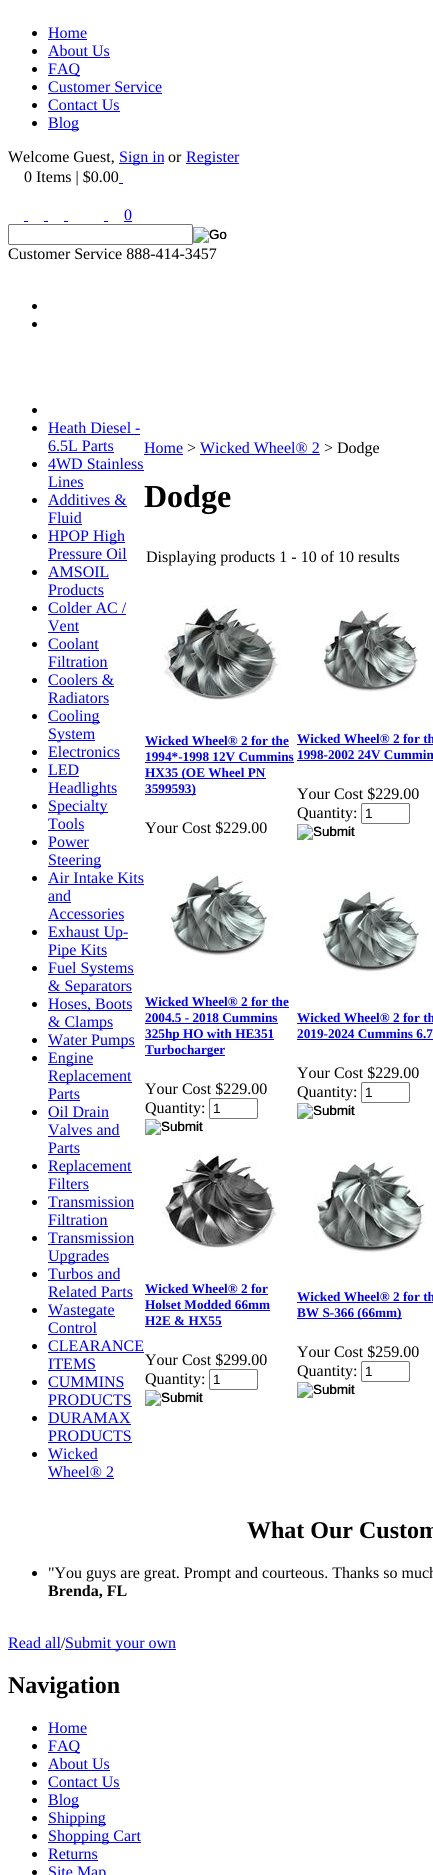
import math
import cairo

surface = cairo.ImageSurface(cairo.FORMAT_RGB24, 433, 1875)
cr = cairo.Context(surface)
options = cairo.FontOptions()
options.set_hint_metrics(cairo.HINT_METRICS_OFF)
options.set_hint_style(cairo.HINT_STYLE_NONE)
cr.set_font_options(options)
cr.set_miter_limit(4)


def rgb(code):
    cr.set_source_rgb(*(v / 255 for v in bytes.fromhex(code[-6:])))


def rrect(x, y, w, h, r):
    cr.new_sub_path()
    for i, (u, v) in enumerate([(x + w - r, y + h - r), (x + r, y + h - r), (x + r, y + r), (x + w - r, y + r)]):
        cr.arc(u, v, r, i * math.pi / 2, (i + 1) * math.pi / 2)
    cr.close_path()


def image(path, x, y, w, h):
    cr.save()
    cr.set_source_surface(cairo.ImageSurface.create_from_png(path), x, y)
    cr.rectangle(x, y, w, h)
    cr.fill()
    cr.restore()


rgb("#ffffff")
cr.paint()
rgb("#000000")
cr.arc(34.5, 33.5, 2.5, 0, 2 * math.pi)
cr.fill()
rgb("#0000ee")
cr.rectangle(48, 39, 39, 1)
cr.fill()
rgb("#000000")
cr.arc(34.5, 51.5, 2.5, 0, 2 * math.pi)
cr.fill()
rgb("#0000ee")
cr.rectangle(48, 57, 62, 1)
cr.fill()
rgb("#000000")
cr.arc(34.5, 69.5, 2.5, 0, 2 * math.pi)
cr.fill()
rgb("#0000ee")
cr.rectangle(48, 75, 32, 1)
cr.fill()
rgb("#000000")
cr.arc(34.5, 87.5, 2.5, 0, 2 * math.pi)
cr.fill()
rgb("#0000ee")
cr.rectangle(48, 93, 114, 1)
cr.fill()
rgb("#000000")
cr.arc(34.5, 105.5, 2.5, 0, 2 * math.pi)
cr.fill()
rgb("#0000ee")
cr.rectangle(48, 111, 72, 1)
cr.fill()
rgb("#000000")
cr.arc(34.5, 123.5, 2.5, 0, 2 * math.pi)
cr.fill()
for x, y, w, h, color in [
    (48, 129, 31, 1, "#0000ee"),
    (119, 163, 45, 1, "#0000ee"),
    (186, 163, 53, 1, "#0000ee"),
    (119, 183, 4, 1, "#0000ee"),
    (124, 221, 8, 1, "#0000ee"),
    (24, 221, 4, 1, "#0000ee"),
    (44, 221, 4, 1, "#0000ee"),
    (64, 221, 4, 1, "#0000ee"),
    (104, 221, 4, 1, "#0000ee"),
]:
    rgb(color)
    cr.rectangle(x, y, w, h)
    cr.fill()
rrect(8.5, 224.5, 184, 20, 1.5)
rgb("#767676")
cr.set_line_width(1)
cr.stroke()
image("img/1.png", 193, 227, 34, 16)
rgb("#000000")
cr.arc(34.5, 306.5, 2.5, 0, 2 * math.pi)
cr.fill()
cr.arc(34.5, 324.5, 2.5, 0, 2 * math.pi)
cr.fill()
cr.arc(34.5, 410.5, 2.5, 0, 2 * math.pi)
cr.fill()
cr.arc(34.5, 428.5, 2.5, 0, 2 * math.pi)
cr.fill()
rgb("#0000ee")
cr.rectangle(48, 434, 92, 1)
cr.fill()
cr.rectangle(48, 452, 66, 1)
cr.fill()
rgb("#000000")
cr.arc(34.5, 464.5, 2.5, 0, 2 * math.pi)
cr.fill()
rgb("#0000ee")
cr.rectangle(48, 470, 96, 1)
cr.fill()
cr.rectangle(48, 488, 36, 1)
cr.fill()
rgb("#000000")
cr.arc(34.5, 500.5, 2.5, 0, 2 * math.pi)
cr.fill()
rgb("#0000ee")
cr.rectangle(48, 506, 79, 1)
cr.fill()
cr.rectangle(48, 524, 34, 1)
cr.fill()
rgb("#000000")
cr.arc(34.5, 536.5, 2.5, 0, 2 * math.pi)
cr.fill()
rgb("#0000ee")
cr.rectangle(48, 542, 77, 1)
cr.fill()
cr.rectangle(48, 560, 79, 1)
cr.fill()
rgb("#000000")
cr.arc(34.5, 572.5, 2.5, 0, 2 * math.pi)
cr.fill()
rgb("#0000ee")
cr.rectangle(48, 578, 61, 1)
cr.fill()
cr.rectangle(48, 596, 56, 1)
cr.fill()
rgb("#000000")
cr.arc(34.5, 608.5, 2.5, 0, 2 * math.pi)
cr.fill()
rgb("#0000ee")
cr.rectangle(48, 614, 78, 1)
cr.fill()
cr.rectangle(48, 632, 31, 1)
cr.fill()
rgb("#000000")
cr.arc(34.5, 644.5, 2.5, 0, 2 * math.pi)
cr.fill()
rgb("#0000ee")
cr.rectangle(48, 650, 51, 1)
cr.fill()
cr.rectangle(48, 668, 60, 1)
cr.fill()
rgb("#000000")
cr.arc(34.5, 680.5, 2.5, 0, 2 * math.pi)
cr.fill()
rgb("#0000ee")
cr.rectangle(48, 686, 66, 1)
cr.fill()
cr.rectangle(48, 704, 61, 1)
cr.fill()
rgb("#000000")
cr.arc(34.5, 716.5, 2.5, 0, 2 * math.pi)
cr.fill()
rgb("#0000ee")
cr.rectangle(48, 722, 52, 1)
cr.fill()
cr.rectangle(48, 740, 47, 1)
cr.fill()
rgb("#000000")
cr.arc(34.5, 752.5, 2.5, 0, 2 * math.pi)
cr.fill()
rgb("#0000ee")
cr.rectangle(48, 758, 72, 1)
cr.fill()
rgb("#000000")
cr.arc(34.5, 770.5, 2.5, 0, 2 * math.pi)
cr.fill()
rgb("#0000ee")
cr.rectangle(48, 776, 31, 1)
cr.fill()
cr.rectangle(48, 794, 69, 1)
cr.fill()
rgb("#000000")
cr.arc(34.5, 806.5, 2.5, 0, 2 * math.pi)
cr.fill()
rgb("#0000ee")
cr.rectangle(48, 812, 60, 1)
cr.fill()
cr.rectangle(48, 830, 36, 1)
cr.fill()
rgb("#000000")
cr.arc(34.5, 842.5, 2.5, 0, 2 * math.pi)
cr.fill()
rgb("#0000ee")
cr.rectangle(48, 848, 41, 1)
cr.fill()
cr.rectangle(48, 866, 53, 1)
cr.fill()
rgb("#000000")
cr.arc(34.5, 878.5, 2.5, 0, 2 * math.pi)
cr.fill()
for x, y, w, h, color in [
    (48, 884, 96, 1, "#0000ee"),
    (48, 902, 23, 1, "#0000ee"),
    (48, 920, 76, 1, "#0000ee"),
]:
    rgb(color)
    cr.rectangle(x, y, w, h)
    cr.fill()
rgb("#000000")
cr.arc(34.5, 932.5, 2.5, 0, 2 * math.pi)
cr.fill()
rgb("#0000ee")
cr.rectangle(48, 938, 80, 1)
cr.fill()
cr.rectangle(48, 956, 59, 1)
cr.fill()
rgb("#000000")
cr.arc(34.5, 968.5, 2.5, 0, 2 * math.pi)
cr.fill()
rgb("#0000ee")
cr.rectangle(48, 974, 86, 1)
cr.fill()
cr.rectangle(48, 992, 84, 1)
cr.fill()
rgb("#000000")
cr.arc(34.5, 1004.5, 2.5, 0, 2 * math.pi)
cr.fill()
rgb("#0000ee")
cr.rectangle(48, 1010, 84, 1)
cr.fill()
cr.rectangle(48, 1028, 65, 1)
cr.fill()
rgb("#000000")
cr.arc(34.5, 1040.5, 2.5, 0, 2 * math.pi)
cr.fill()
rgb("#0000ee")
cr.rectangle(48, 1046, 87, 1)
cr.fill()
rgb("#000000")
cr.arc(34.5, 1058.5, 2.5, 0, 2 * math.pi)
cr.fill()
for x, y, w, h, color in [
    (48, 1064, 45, 1, "#0000ee"),
    (48, 1082, 84, 1, "#0000ee"),
    (48, 1100, 32, 1, "#0000ee"),
]:
    rgb(color)
    cr.rectangle(x, y, w, h)
    cr.fill()
rgb("#000000")
cr.arc(34.5, 1112.5, 2.5, 0, 2 * math.pi)
cr.fill()
for x, y, w, h, color in [
    (48, 1118, 61, 1, "#0000ee"),
    (48, 1136, 72, 1, "#0000ee"),
    (48, 1154, 32, 1, "#0000ee"),
]:
    rgb(color)
    cr.rectangle(x, y, w, h)
    cr.fill()
rgb("#000000")
cr.arc(34.5, 1166.5, 2.5, 0, 2 * math.pi)
cr.fill()
rgb("#0000ee")
cr.rectangle(48, 1172, 84, 1)
cr.fill()
cr.rectangle(48, 1190, 41, 1)
cr.fill()
rgb("#000000")
cr.arc(34.5, 1202.5, 2.5, 0, 2 * math.pi)
cr.fill()
rgb("#0000ee")
cr.rectangle(48, 1208, 86, 1)
cr.fill()
cr.rectangle(48, 1226, 60, 1)
cr.fill()
rgb("#000000")
cr.arc(34.5, 1238.5, 2.5, 0, 2 * math.pi)
cr.fill()
rgb("#0000ee")
cr.rectangle(48, 1244, 86, 1)
cr.fill()
cr.rectangle(48, 1262, 61, 1)
cr.fill()
rgb("#000000")
cr.arc(34.5, 1274.5, 2.5, 0, 2 * math.pi)
cr.fill()
rgb("#0000ee")
cr.rectangle(48, 1280, 72, 1)
cr.fill()
cr.rectangle(48, 1298, 85, 1)
cr.fill()
rgb("#000000")
cr.arc(34.5, 1310.5, 2.5, 0, 2 * math.pi)
cr.fill()
rgb("#0000ee")
cr.rectangle(48, 1316, 67, 1)
cr.fill()
cr.rectangle(48, 1334, 49, 1)
cr.fill()
rgb("#000000")
cr.arc(34.5, 1346.5, 2.5, 0, 2 * math.pi)
cr.fill()
rgb("#0000ee")
cr.rectangle(48, 1352, 96, 1)
cr.fill()
cr.rectangle(48, 1370, 48, 1)
cr.fill()
rgb("#000000")
cr.arc(34.5, 1382.5, 2.5, 0, 2 * math.pi)
cr.fill()
rgb("#0000ee")
cr.rectangle(48, 1388, 76, 1)
cr.fill()
cr.rectangle(48, 1406, 84, 1)
cr.fill()
rgb("#000000")
cr.arc(34.5, 1418.5, 2.5, 0, 2 * math.pi)
cr.fill()
rgb("#0000ee")
cr.rectangle(48, 1424, 83, 1)
cr.fill()
cr.rectangle(48, 1442, 84, 1)
cr.fill()
rgb("#000000")
cr.arc(34.5, 1454.5, 2.5, 0, 2 * math.pi)
cr.fill()
for x, y, w, h, color in [
    (48, 1460, 50, 1, "#0000ee"),
    (48, 1478, 66, 1, "#0000ee"),
    (144, 454, 39, 1, "#0000ee"),
    (200, 454, 120, 1, "#0000ee"),
]:
    rgb(color)
    cr.rectangle(x, y, w, h)
    cr.fill()
image("img/2.png", 162, 605, 119, 96)
for x, y, w, h, color in [
    (145, 746, 144, 1, "#0000ee"),
    (145, 762, 149, 1, "#0000ee"),
    (145, 778, 121, 1, "#0000ee"),
    (145, 794, 51, 1, "#0000ee"),
]:
    rgb(color)
    cr.rectangle(x, y, w, h)
    cr.fill()
image("img/3.png", 321, 610, 98, 82)
cr.rectangle(297, 744, 136, 1)
cr.fill()
cr.rectangle(297, 760, 136, 1)
cr.fill()
rrect(361.5, 803.5, 48, 20, 1.5)
rgb("#767676")
cr.stroke()
image("img/4.png", 297, 824, 57, 16)
image("img/5.png", 169, 874, 104, 84)
for x, y, w, h, color in [
    (145, 1007, 144, 1, "#0000ee"),
    (145, 1023, 133, 1, "#0000ee"),
    (145, 1039, 129, 1, "#0000ee"),
    (145, 1055, 80, 1, "#0000ee"),
]:
    rgb(color)
    cr.rectangle(x, y, w, h)
    cr.fill()
rrect(209.5, 1098.5, 48, 20, 1.5)
rgb("#767676")
cr.stroke()
image("img/4.png", 145, 1119, 57, 16)
image("img/5.png", 321, 890, 104, 84)
rgb("#0000ee")
cr.rectangle(297, 1023, 136, 1)
cr.fill()
cr.rectangle(297, 1039, 136, 1)
cr.fill()
rrect(361.5, 1082.5, 48, 20, 1.5)
rgb("#767676")
cr.stroke()
image("img/4.png", 297, 1103, 57, 16)
image("img/6.png", 161, 1153, 119, 96)
for x, y, w, h, color in [
    (145, 1294, 123, 1, "#0000ee"),
    (145, 1310, 125, 1, "#0000ee"),
    (145, 1326, 77, 1, "#0000ee"),
]:
    rgb(color)
    cr.rectangle(x, y, w, h)
    cr.fill()
rrect(209.5, 1369.5, 48, 20, 1.5)
rgb("#767676")
cr.stroke()
image("img/4.png", 145, 1390, 57, 16)
image("img/7.png", 313, 1161, 112, 92)
rgb("#0000ee")
cr.rectangle(297, 1302, 136, 1)
cr.fill()
cr.rectangle(297, 1318, 105, 1)
cr.fill()
rrect(361.5, 1361.5, 48, 20, 1.5)
rgb("#767676")
cr.stroke()
image("img/4.png", 297, 1382, 57, 16)
rgb("#000000")
cr.arc(34.5, 1573.5, 2.5, 0, 2 * math.pi)
cr.fill()
rgb("#0000ee")
cr.rectangle(8, 1649, 53, 1)
cr.fill()
cr.rectangle(65, 1649, 111, 1)
cr.fill()
rgb("#000000")
cr.arc(34.5, 1728.5, 2.5, 0, 2 * math.pi)
cr.fill()
rgb("#0000ee")
cr.rectangle(48, 1734, 39, 1)
cr.fill()
rgb("#000000")
cr.arc(34.5, 1746.5, 2.5, 0, 2 * math.pi)
cr.fill()
rgb("#0000ee")
cr.rectangle(48, 1752, 32, 1)
cr.fill()
rgb("#000000")
cr.arc(34.5, 1764.5, 2.5, 0, 2 * math.pi)
cr.fill()
rgb("#0000ee")
cr.rectangle(48, 1770, 62, 1)
cr.fill()
rgb("#000000")
cr.arc(34.5, 1782.5, 2.5, 0, 2 * math.pi)
cr.fill()
rgb("#0000ee")
cr.rectangle(48, 1788, 72, 1)
cr.fill()
rgb("#000000")
cr.arc(34.5, 1800.5, 2.5, 0, 2 * math.pi)
cr.fill()
rgb("#0000ee")
cr.rectangle(48, 1806, 31, 1)
cr.fill()
rgb("#000000")
cr.arc(34.5, 1818.5, 2.5, 0, 2 * math.pi)
cr.fill()
rgb("#0000ee")
cr.rectangle(48, 1824, 58, 1)
cr.fill()
rgb("#000000")
cr.arc(34.5, 1836.5, 2.5, 0, 2 * math.pi)
cr.fill()
rgb("#0000ee")
cr.rectangle(48, 1842, 93, 1)
cr.fill()
rgb("#000000")
cr.arc(34.5, 1854.5, 2.5, 0, 2 * math.pi)
cr.fill()
rgb("#0000ee")
cr.rectangle(48, 1860, 50, 1)
cr.fill()
rgb("#000000")
cr.arc(34.5, 1872.5, 2.5, 0, 2 * math.pi)
cr.fill()
cr.select_font_face("Liberation Serif")
cr.set_font_size(16)
rgb("#0000ee")
for x, y, s in [
    (48, 38, "Home"),
    (48, 56, "About Us"),
    (48, 74, "FAQ"),
    (48, 92, "Customer Service"),
    (48, 110, "Contact Us"),
    (48, 128, "Blog"),
]:
    cr.move_to(x, y)
    cr.show_text(s)
rgb("#000000")
cr.move_to(8, 162)
cr.show_text("Welcome Guest,")
rgb("#0000ee")
cr.move_to(119, 162)
cr.show_text("Sign in")
rgb("#000000")
cr.move_to(168, 162)
cr.show_text("or")
rgb("#0000ee")
cr.move_to(186, 162)
cr.show_text("Register")
rgb("#000000")
cr.move_to(24, 182)
cr.show_text("0 Items | $0.00")
rgb("#0000ee")
cr.move_to(124, 220)
cr.show_text("0")
cr.select_font_face("Liberation Sans")
cr.set_font_size(13.5)
rgb("#000000")
cr.move_to(209, 239)
cr.show_text("Go")
cr.select_font_face("Liberation Serif")
cr.set_font_size(16)
cr.move_to(8, 259)
cr.show_text("Customer Service 888-414-3457")
rgb("#0000ee")
for x, y, s in [
    (48, 433, "Heath Diesel -"),
    (48, 451, "6.5L Parts"),
    (48, 469, "4WD Stainless"),
    (48, 487, "Lines"),
    (48, 505, "Additives &"),
    (48, 523, "Fluid"),
    (48, 541, "HPOP High"),
    (48, 559, "Pressure Oil"),
    (48, 577, "AMSOIL"),
    (48, 595, "Products"),
    (48, 613, "Colder AC /"),
    (48, 631, "Vent"),
    (48, 649, "Coolant"),
    (48, 667, "Filtration"),
    (48, 685, "Coolers &"),
    (48, 703, "Radiators"),
    (48, 721, "Cooling"),
    (48, 739, "System"),
    (48, 757, "Electronics"),
    (48, 775, "LED"),
    (48, 793, "Headlights"),
    (48, 811, "Specialty"),
    (48, 829, "Tools"),
    (48, 847, "Power"),
    (48, 865, "Steering"),
    (48, 883, "Air Intake Kits"),
    (48, 901, "and"),
    (48, 919, "Accessories"),
    (48, 937, "Exhaust Up-"),
    (48, 955, "Pipe Kits"),
    (48, 973, "Fuel Systems"),
    (48, 991, "& Separators"),
    (48, 1009, "Hoses, Boots"),
    (48, 1027, "& Clamps"),
    (48, 1045, "Water Pumps"),
    (48, 1063, "Engine"),
    (48, 1081, "Replacement"),
    (48, 1099, "Parts"),
    (48, 1117, "Oil Drain"),
    (48, 1135, "Valves and"),
    (48, 1153, "Parts"),
    (48, 1171, "Replacement"),
    (48, 1189, "Filters"),
    (48, 1207, "Transmission"),
    (48, 1225, "Filtration"),
    (48, 1243, "Transmission"),
    (48, 1261, "Upgrades"),
    (48, 1279, "Turbos and"),
    (48, 1297, "Related Parts"),
    (48, 1315, "Wastegate"),
    (48, 1333, "Control"),
    (48, 1351, "CLEARANCE"),
    (48, 1369, "ITEMS"),
    (48, 1387, "CUMMINS"),
    (48, 1405, "PRODUCTS"),
    (48, 1423, "DURAMAX"),
    (48, 1441, "PRODUCTS"),
    (48, 1459, "Wicked"),
    (48, 1477, "Wheel® 2"),
    (144, 453, "Home"),
]:
    cr.move_to(x, y)
    cr.show_text(s)
rgb("#000000")
cr.move_to(187, 453)
cr.show_text(">")
rgb("#0000ee")
cr.move_to(200, 453)
cr.show_text("Wicked Wheel® 2")
rgb("#000000")
cr.move_to(324, 453)
cr.show_text("> Dodge")
cr.select_font_face("Liberation Serif", cairo.FONT_SLANT_NORMAL, cairo.FONT_WEIGHT_BOLD)
cr.set_font_size(32)
cr.move_to(144, 507)
cr.show_text("Dodge")
cr.select_font_face("Liberation Serif")
cr.set_font_size(16)
cr.move_to(146, 562)
cr.show_text("Displaying products 1 - 10 of 10 results")
cr.select_font_face("Liberation Serif", cairo.FONT_SLANT_NORMAL, cairo.FONT_WEIGHT_BOLD)
cr.set_font_size(13.25)
rgb("#0000ee")
for x, y, s in [
    (145, 745, "Wicked Wheel® 2 for the"),
    (145, 761, "1994*-1998 12V Cummins"),
    (145, 777, "HX35 (OE Wheel PN"),
    (145, 793, "3599593)"),
]:
    cr.move_to(x, y)
    cr.show_text(s)
cr.select_font_face("Liberation Serif")
cr.set_font_size(16)
rgb("#000000")
cr.move_to(145, 833)
cr.show_text("Your Cost $229.00")
cr.select_font_face("Liberation Serif", cairo.FONT_SLANT_NORMAL, cairo.FONT_WEIGHT_BOLD)
cr.set_font_size(13.25)
rgb("#0000ee")
cr.move_to(297, 743)
cr.show_text("Wicked Wheel® 2 for th")
cr.move_to(297, 759)
cr.show_text("1998-2002 24V Cummin")
cr.select_font_face("Liberation Serif")
cr.set_font_size(16)
rgb("#000000")
cr.move_to(297, 799)
cr.show_text("Your Cost $229.00")
cr.move_to(297, 818)
cr.show_text("Quantity:")
cr.select_font_face("Liberation Sans")
cr.set_font_size(13.5)
cr.move_to(365, 818)
cr.show_text("1")
cr.move_to(313, 836)
cr.show_text("Submit")
cr.select_font_face("Liberation Serif", cairo.FONT_SLANT_NORMAL, cairo.FONT_WEIGHT_BOLD)
cr.set_font_size(13.25)
rgb("#0000ee")
for x, y, s in [
    (145, 1006, "Wicked Wheel® 2 for the"),
    (145, 1022, "2004.5 - 2018 Cummins"),
    (145, 1038, "325hp HO with HE351"),
    (145, 1054, "Turbocharger"),
]:
    cr.move_to(x, y)
    cr.show_text(s)
cr.select_font_face("Liberation Serif")
cr.set_font_size(16)
rgb("#000000")
cr.move_to(145, 1094)
cr.show_text("Your Cost $229.00")
cr.move_to(145, 1113)
cr.show_text("Quantity:")
cr.select_font_face("Liberation Sans")
cr.set_font_size(13.5)
cr.move_to(213, 1113)
cr.show_text("1")
cr.move_to(161, 1131)
cr.show_text("Submit")
cr.select_font_face("Liberation Serif", cairo.FONT_SLANT_NORMAL, cairo.FONT_WEIGHT_BOLD)
cr.set_font_size(13.25)
rgb("#0000ee")
cr.move_to(297, 1022)
cr.show_text("Wicked Wheel® 2 for th")
cr.move_to(297, 1038)
cr.show_text("2019-2024 Cummins 6.7")
cr.select_font_face("Liberation Serif")
cr.set_font_size(16)
rgb("#000000")
cr.move_to(297, 1078)
cr.show_text("Your Cost $229.00")
cr.move_to(297, 1097)
cr.show_text("Quantity:")
cr.select_font_face("Liberation Sans")
cr.set_font_size(13.5)
cr.move_to(365, 1097)
cr.show_text("1")
cr.move_to(313, 1115)
cr.show_text("Submit")
cr.select_font_face("Liberation Serif", cairo.FONT_SLANT_NORMAL, cairo.FONT_WEIGHT_BOLD)
cr.set_font_size(13.25)
rgb("#0000ee")
for x, y, s in [
    (145, 1293, "Wicked Wheel® 2 for"),
    (145, 1309, "Holset Modded 66mm"),
    (145, 1325, "H2E & HX55"),
]:
    cr.move_to(x, y)
    cr.show_text(s)
cr.select_font_face("Liberation Serif")
cr.set_font_size(16)
rgb("#000000")
cr.move_to(145, 1365)
cr.show_text("Your Cost $299.00")
cr.move_to(145, 1384)
cr.show_text("Quantity:")
cr.select_font_face("Liberation Sans")
cr.set_font_size(13.5)
cr.move_to(213, 1384)
cr.show_text("1")
cr.move_to(161, 1402)
cr.show_text("Submit")
cr.select_font_face("Liberation Serif", cairo.FONT_SLANT_NORMAL, cairo.FONT_WEIGHT_BOLD)
cr.set_font_size(13.25)
rgb("#0000ee")
cr.move_to(297, 1301)
cr.show_text("Wicked Wheel® 2 for th")
cr.move_to(297, 1317)
cr.show_text("BW S-366 (66mm)")
cr.select_font_face("Liberation Serif")
cr.set_font_size(16)
rgb("#000000")
cr.move_to(297, 1357)
cr.show_text("Your Cost $259.00")
cr.move_to(297, 1376)
cr.show_text("Quantity:")
cr.select_font_face("Liberation Sans")
cr.set_font_size(13.5)
cr.move_to(365, 1376)
cr.show_text("1")
cr.move_to(313, 1394)
cr.show_text("Submit")
cr.select_font_face("Liberation Serif", cairo.FONT_SLANT_NORMAL, cairo.FONT_WEIGHT_BOLD)
cr.set_font_size(24)
cr.move_to(247, 1538)
cr.show_text("What Our Custom")
cr.select_font_face("Liberation Serif")
cr.set_font_size(16)
cr.move_to(48, 1578)
cr.show_text("\"You guys are great. Prompt and courteous. Thanks so much")
cr.select_font_face("Liberation Serif", cairo.FONT_SLANT_NORMAL, cairo.FONT_WEIGHT_BOLD)
cr.move_to(48, 1596)
cr.show_text("Brenda, FL")
cr.select_font_face("Liberation Serif")
rgb("#0000ee")
cr.move_to(8, 1648)
cr.show_text("Read all")
rgb("#000000")
cr.move_to(61, 1648)
cr.show_text("/")
rgb("#0000ee")
cr.move_to(65, 1648)
cr.show_text("Submit your own")
cr.select_font_face("Liberation Serif", cairo.FONT_SLANT_NORMAL, cairo.FONT_WEIGHT_BOLD)
cr.set_font_size(24)
rgb("#000000")
cr.move_to(8, 1693)
cr.show_text("Navigation")
cr.select_font_face("Liberation Serif")
cr.set_font_size(16)
rgb("#0000ee")
for x, y, s in [
    (48, 1733, "Home"),
    (48, 1751, "FAQ"),
    (48, 1769, "About Us"),
    (48, 1787, "Contact Us"),
    (48, 1805, "Blog"),
    (48, 1823, "Shipping"),
    (48, 1841, "Shopping Cart"),
    (48, 1859, "Returns"),
    (48, 1877, "Site Map"),
]:
    cr.move_to(x, y)
    cr.show_text(s)
surface.write_to_png("page.png")
